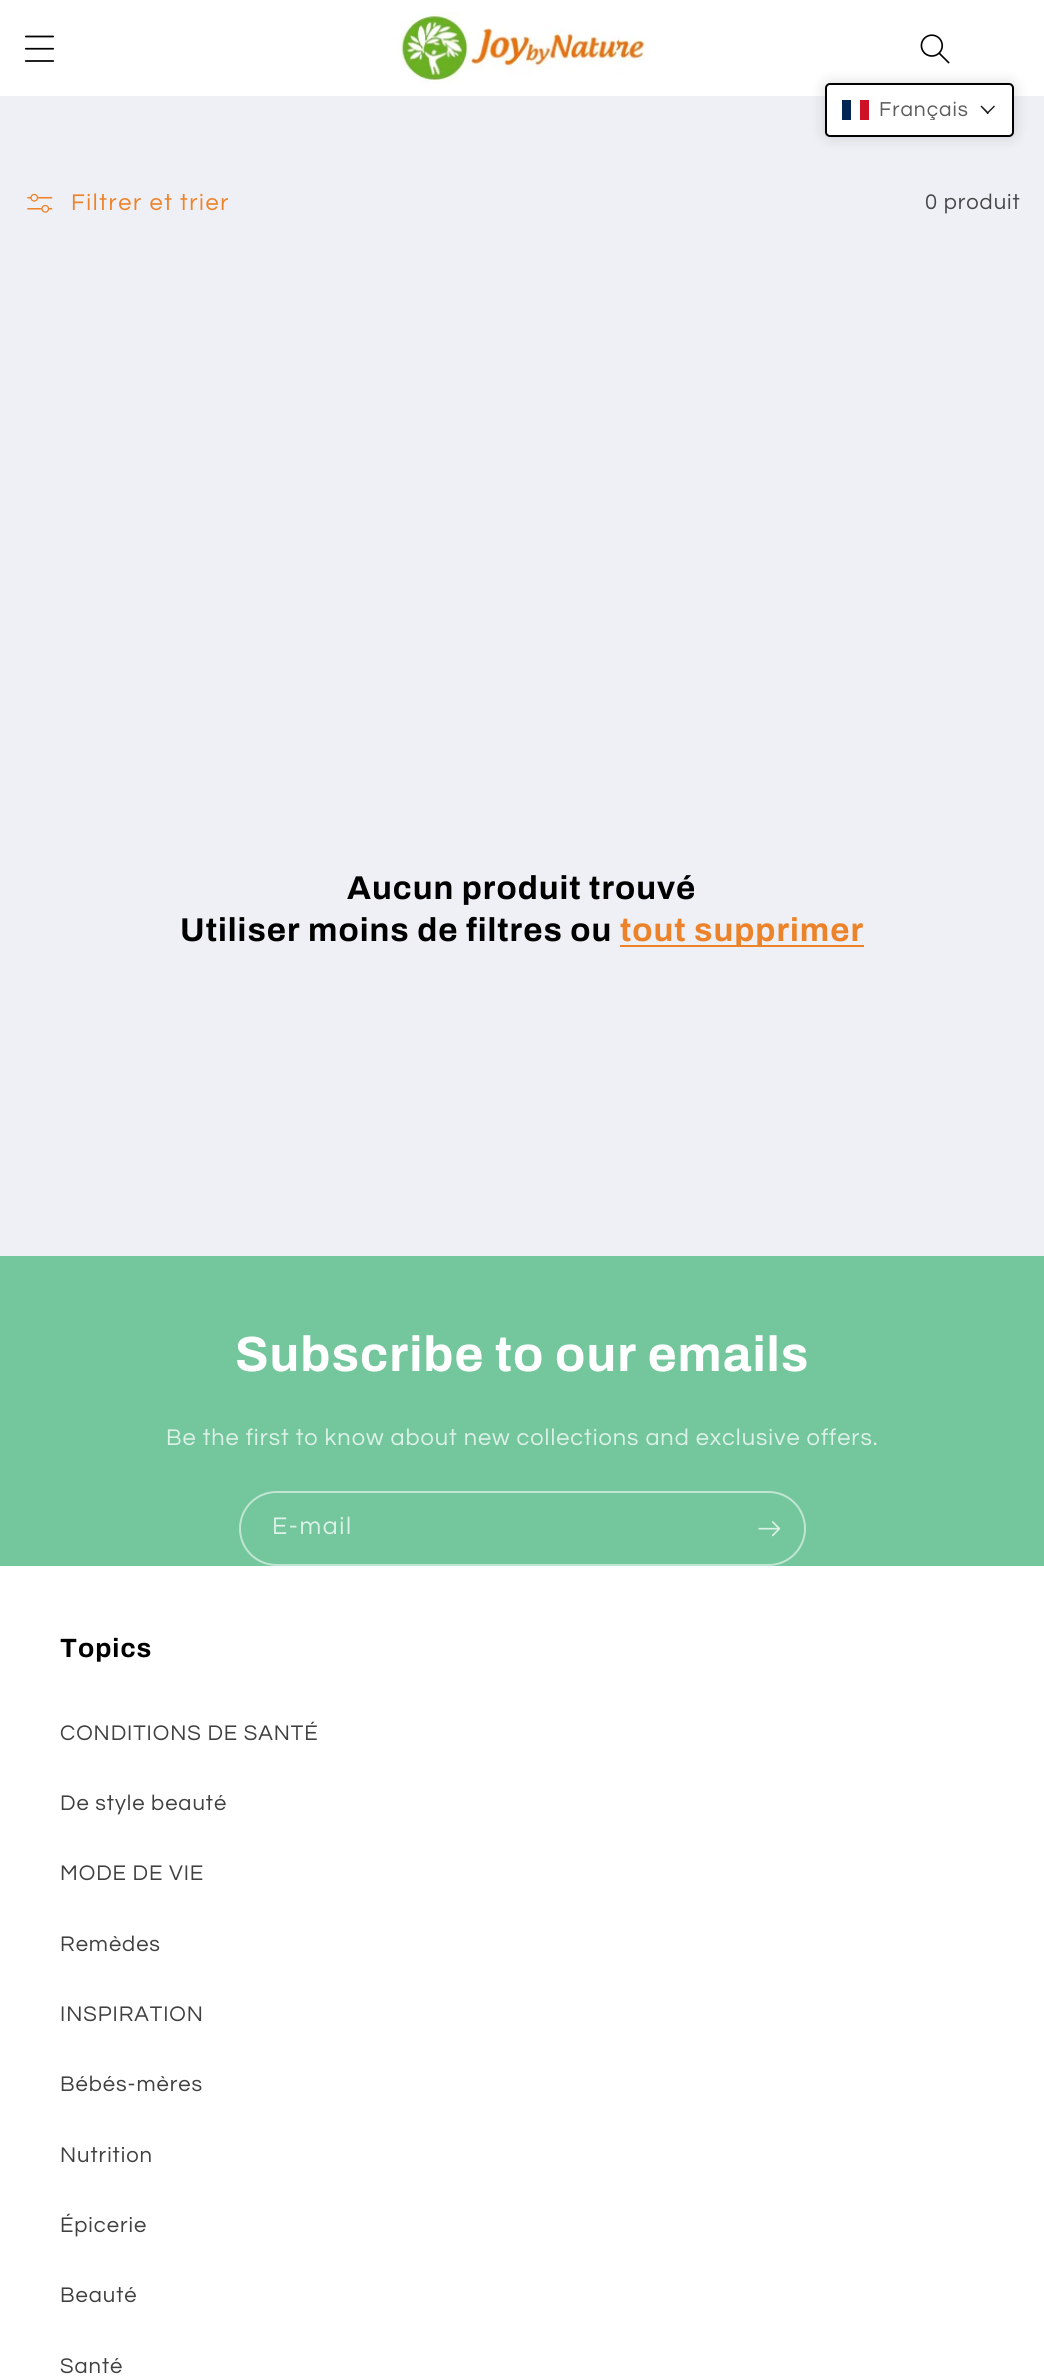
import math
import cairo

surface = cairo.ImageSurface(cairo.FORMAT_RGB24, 1044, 2380)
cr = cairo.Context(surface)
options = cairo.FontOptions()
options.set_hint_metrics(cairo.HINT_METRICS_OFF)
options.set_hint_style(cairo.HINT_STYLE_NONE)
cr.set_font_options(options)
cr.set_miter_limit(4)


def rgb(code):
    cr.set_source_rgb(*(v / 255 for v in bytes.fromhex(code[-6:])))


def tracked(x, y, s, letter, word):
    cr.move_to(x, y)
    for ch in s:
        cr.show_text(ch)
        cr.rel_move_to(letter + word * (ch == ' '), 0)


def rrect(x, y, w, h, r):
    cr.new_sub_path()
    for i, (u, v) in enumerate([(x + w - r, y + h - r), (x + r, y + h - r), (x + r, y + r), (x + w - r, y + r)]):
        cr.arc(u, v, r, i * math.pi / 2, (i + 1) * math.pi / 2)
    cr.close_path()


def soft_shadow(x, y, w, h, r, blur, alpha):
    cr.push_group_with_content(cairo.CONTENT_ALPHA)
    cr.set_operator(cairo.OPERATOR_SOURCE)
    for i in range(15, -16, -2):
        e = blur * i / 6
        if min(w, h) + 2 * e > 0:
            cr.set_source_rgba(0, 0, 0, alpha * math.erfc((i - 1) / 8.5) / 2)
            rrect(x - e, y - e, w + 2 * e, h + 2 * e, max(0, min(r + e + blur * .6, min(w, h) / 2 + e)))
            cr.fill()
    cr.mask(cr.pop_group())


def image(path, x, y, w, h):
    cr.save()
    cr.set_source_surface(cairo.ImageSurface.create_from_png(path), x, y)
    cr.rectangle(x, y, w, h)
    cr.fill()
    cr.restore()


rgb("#eff0f5")
cr.paint()
rgb("#ffffff")
cr.rectangle(0, 0, 1044, 96)
cr.fill()
image("img/1.png", 24, 35, 31, 27)
image("img/2.png", 394, 12, 254, 72)
image("img/3.png", 920, 34, 30, 30)
rgb("#000000")
soft_shadow(825, 83, 189, 54, 5, 7.5, 0.15)
rgb("#ffffff")
rrect(826, 84, 187, 52, 4)
cr.fill_preserve()
rgb("#000000")
cr.stroke()
rgb("#002654")
cr.rectangle(842, 100, 9, 20)
cr.fill()
rgb("#ce1126")
cr.rectangle(860, 100, 9, 20)
cr.fill()
rgb("#1a1a1a")
cr.new_path()
cr.move_to(994, 105.5)
cr.line_to(995, 106.5)
cr.line_to(987.5, 114)
cr.line_to(986.5, 113)
cr.close_path()
cr.fill()
cr.new_path()
cr.move_to(981.5, 105.5)
cr.line_to(989, 113)
cr.line_to(987.5, 114)
cr.line_to(980.5, 106.5)
cr.close_path()
cr.fill()
image("img/4.png", 27, 193, 26, 20)
rgb("#ec832a")
cr.rectangle(620, 945, 244, 2)
cr.fill()
rgb("#74c69d")
cr.rectangle(0, 1256, 1044, 310)
cr.fill()
rrect(240, 1492, 565, 73, 36.5)
rgb("#c0e5d3")
cr.stroke()
image("img/5.png", 758, 1521, 23, 16)
rgb("#ffffff")
cr.rectangle(0, 1566, 1044, 814)
cr.fill()
cr.save()
cr.rectangle(879, 99, 90, 21)
cr.clip()
cr.select_font_face("Questrial")
cr.set_font_size(21)
rgb("#5c5c5c")
tracked(879, 116, "Français", 0.95, 0)
cr.restore()
cr.select_font_face("Questrial")
cr.set_font_size(23.6)
rgb("#ec832a")
tracked(71, 210, "Filtrer et trier", 1.6, 0)
cr.set_font_size(22)
rgb("#48484a")
tracked(925, 209, "0 produit", 0.95, 0)
cr.select_font_face("Archivo", cairo.FONT_SLANT_NORMAL, cairo.FONT_WEIGHT_BOLD)
cr.set_font_size(33)
rgb("#000000")
tracked(347, 899, "Aucun produit trouvé", 1, 0)
tracked(180, 941, "Utiliser moins de filtres ou", 1, 0)
rgb("#ec832a")
tracked(620, 941, "tout supprimer", 1, 0)
cr.set_font_size(49.5)
rgb("#ffffff")
tracked(235, 1371, "Subscribe to our emails", 1, 0)
cr.select_font_face("Questrial")
cr.set_font_size(23.6)
rgb("#dcf1e7")
tracked(166, 1445, "Be the first to know about new collections and exclusive offers.", 0.95, 0)
cr.set_font_size(25)
tracked(272, 1534, "E-mail", 1.6, 0)
cr.select_font_face("Archivo", cairo.FONT_SLANT_NORMAL, cairo.FONT_WEIGHT_BOLD)
cr.set_font_size(26.5)
rgb("#000000")
tracked(60, 1657, "Topics", 1, 0)
cr.select_font_face("Questrial")
cr.set_font_size(22)
rgb("#404040")
for x, y, s in [
    (60, 1740, "CONDITIONS DE SANTÉ"),
    (60, 1810, "De style beauté"),
    (60, 1880, "MODE DE VIE"),
    (60, 1951, "Remèdes"),
    (60, 2021, "INSPIRATION"),
    (60, 2091, "Bébés-mères"),
    (60, 2162, "Nutrition"),
    (60, 2232, "Épicerie"),
    (60, 2302, "Beauté"),
    (60, 2373, "Santé"),
]:
    tracked(x, y, s, 0.95, 0)
surface.write_to_png("page.png")
